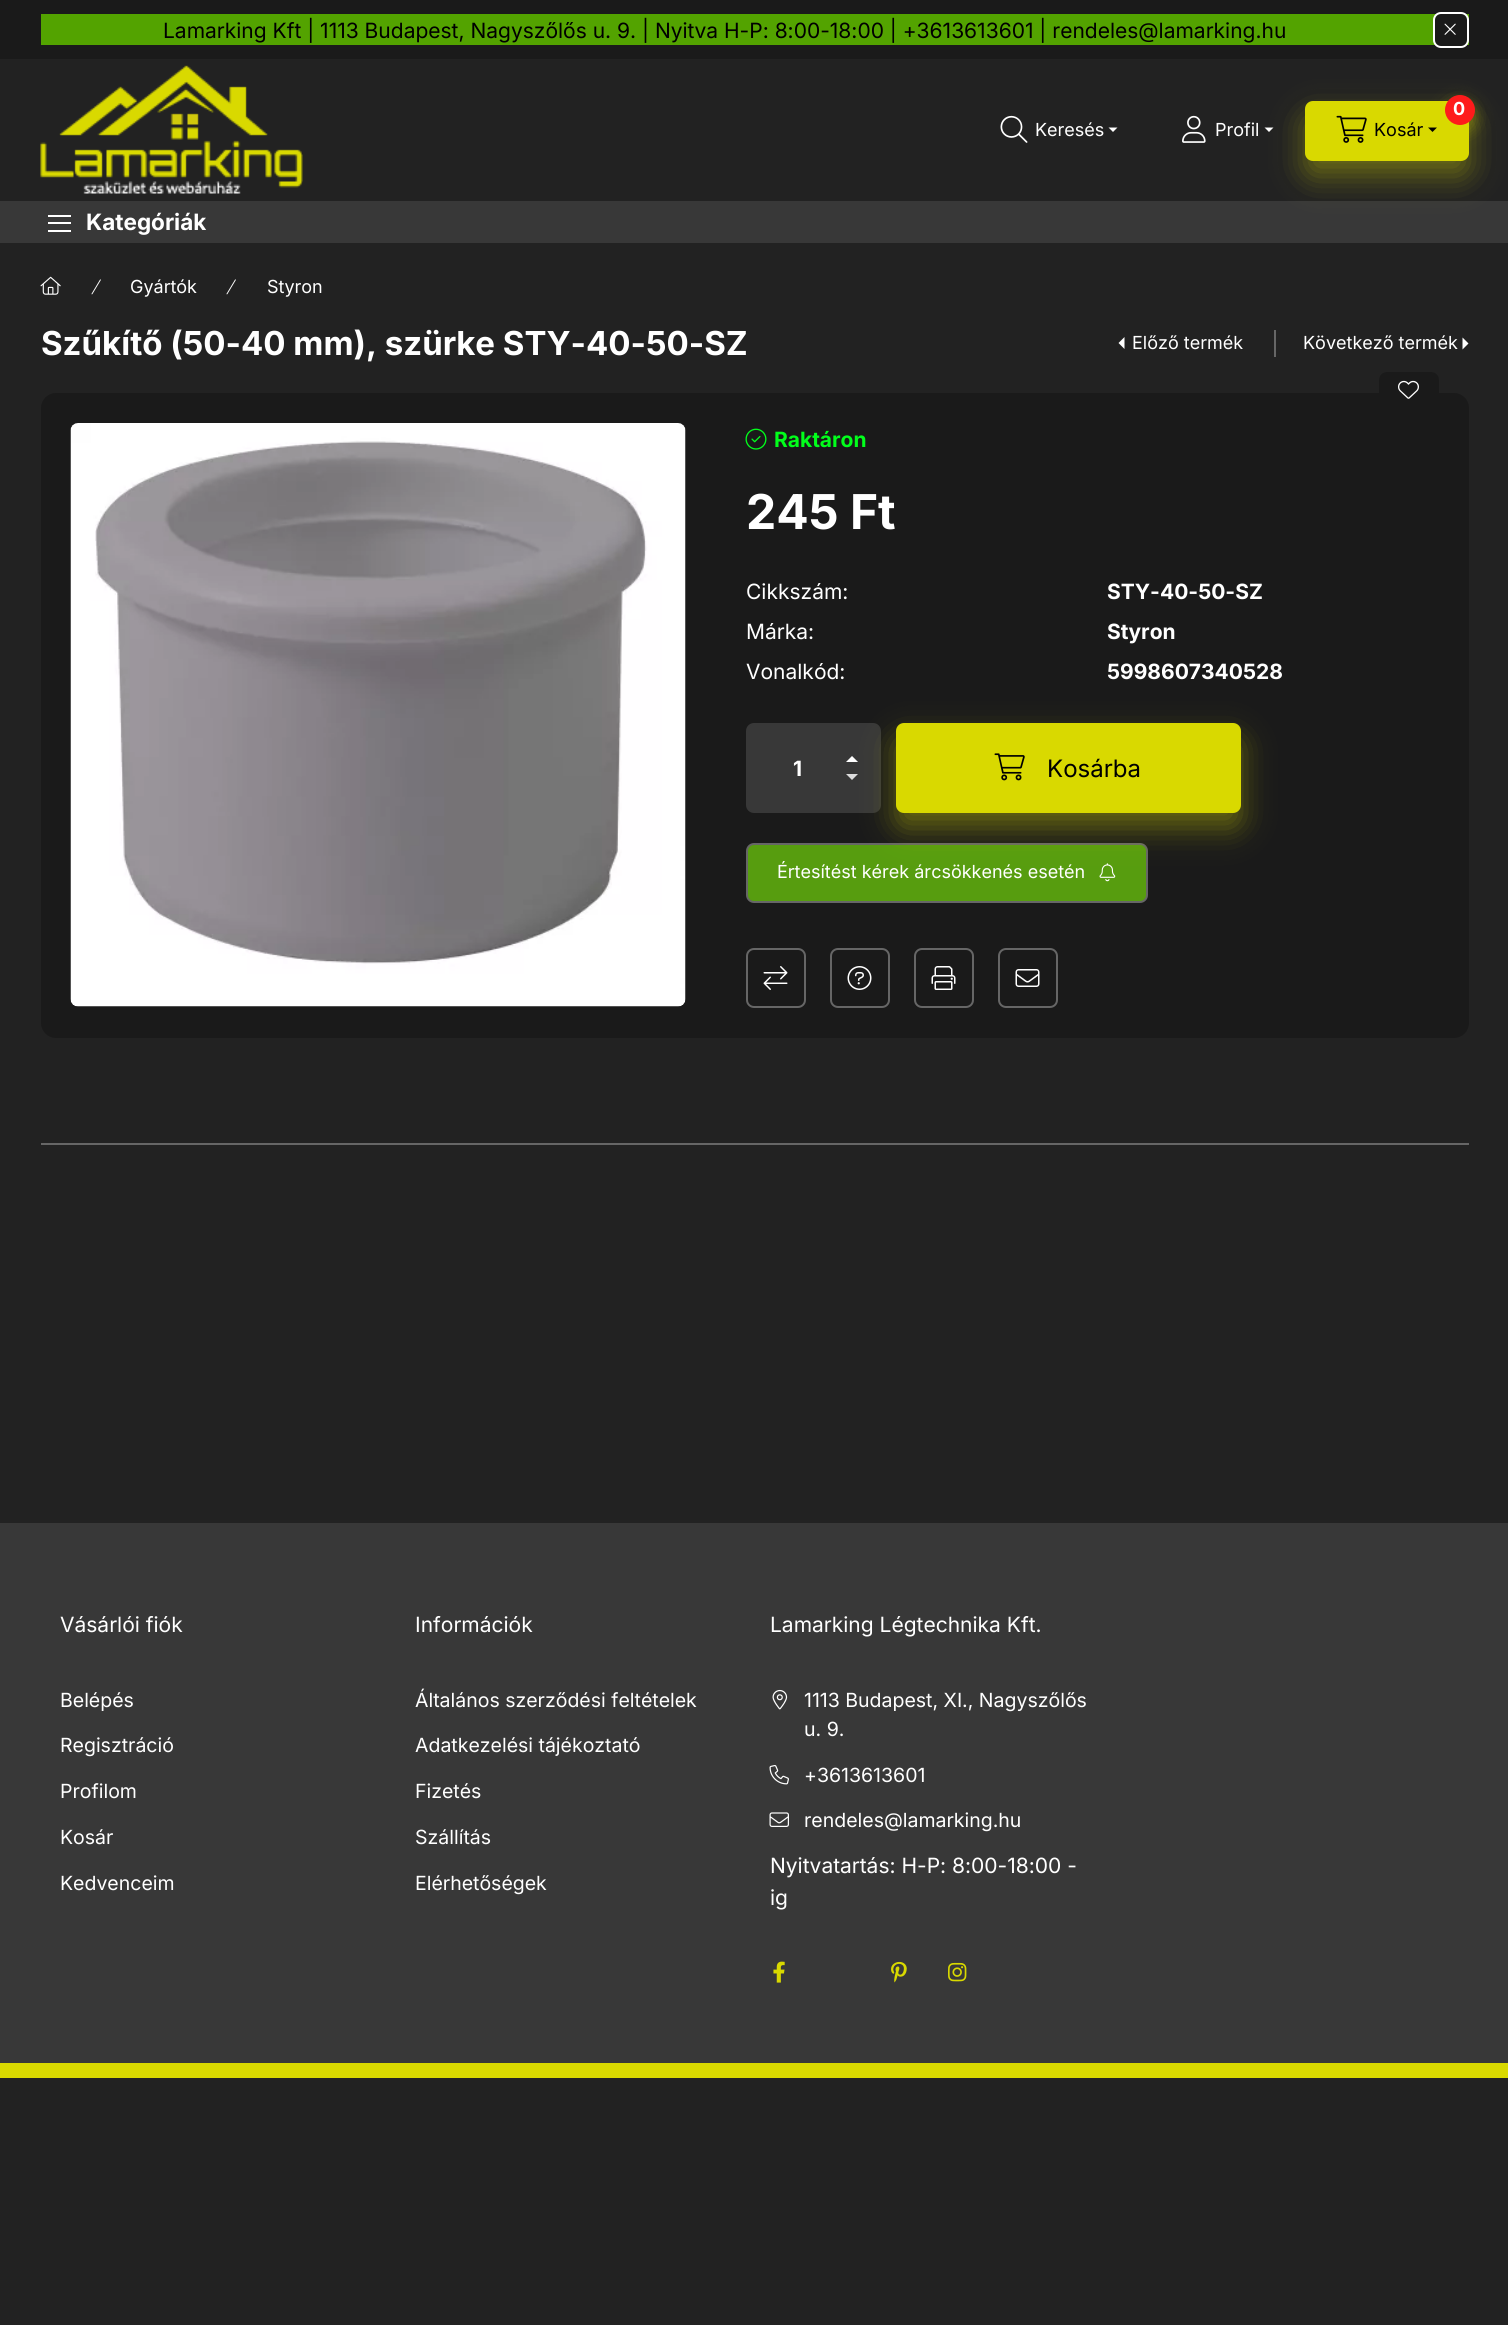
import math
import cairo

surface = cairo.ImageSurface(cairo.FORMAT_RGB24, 1508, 2325)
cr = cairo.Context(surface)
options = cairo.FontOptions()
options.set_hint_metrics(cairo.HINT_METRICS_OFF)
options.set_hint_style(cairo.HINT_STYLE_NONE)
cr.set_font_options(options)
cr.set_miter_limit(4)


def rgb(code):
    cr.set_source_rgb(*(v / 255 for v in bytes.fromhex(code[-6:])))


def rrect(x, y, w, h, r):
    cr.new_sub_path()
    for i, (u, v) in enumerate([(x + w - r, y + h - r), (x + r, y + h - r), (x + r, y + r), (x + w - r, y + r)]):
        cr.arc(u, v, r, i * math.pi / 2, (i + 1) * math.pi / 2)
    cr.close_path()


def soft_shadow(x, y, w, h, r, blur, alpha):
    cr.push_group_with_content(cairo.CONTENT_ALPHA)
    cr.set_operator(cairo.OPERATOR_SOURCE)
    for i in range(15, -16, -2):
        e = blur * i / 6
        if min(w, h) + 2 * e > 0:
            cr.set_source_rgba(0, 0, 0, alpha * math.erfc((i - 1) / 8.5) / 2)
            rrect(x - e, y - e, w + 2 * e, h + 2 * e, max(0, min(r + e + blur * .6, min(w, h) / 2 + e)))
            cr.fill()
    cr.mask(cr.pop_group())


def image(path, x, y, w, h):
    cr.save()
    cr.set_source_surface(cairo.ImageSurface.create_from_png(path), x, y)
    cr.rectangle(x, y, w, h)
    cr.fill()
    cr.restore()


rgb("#222222")
cr.paint()
rgb("#1a1a1a")
cr.rectangle(0, 0, 1508, 59)
cr.fill()
rgb("#53a300")
cr.rectangle(41, 14, 1428, 31)
cr.fill()
rgb("#1a1a1a")
rrect(1434, 13, 34, 34, 7)
cr.fill_preserve()
rgb("#ffffff")
cr.stroke()
image("img/1.png", 1444, 23, 12, 12)
image("img/2.png", 40, 65, 263, 129)
image("img/3.png", 1000, 115, 28, 28)
cr.new_path()
cr.move_to(1108.5, 127.5)
cr.line_to(1117.5, 127.5)
cr.line_to(1113, 132)
cr.close_path()
cr.fill()
image("img/4.png", 1182, 115, 24, 28)
rgb("#383838")
cr.rectangle(0, 201, 1508, 42)
cr.fill()
rgb("#d9d900")
soft_shadow(1305, 116, 164, 60, 8, 15, 0.4)
rgb("#ffffff")
cr.new_path()
cr.move_to(1264.5, 127.5)
cr.line_to(1273.5, 127.5)
cr.line_to(1269, 132)
cr.close_path()
cr.fill()
rgb("#d9d900")
rrect(1305, 101, 164, 60, 8)
cr.fill()
rgb("#d9d900")
soft_shadow(1445, 102, 30, 30, 15, 7.5, 0.4)
rgb("#fe1b1b")
cr.arc(1460, 110, 15, 0, 2 * math.pi)
cr.fill()
image("img/5.png", 1336, 115, 31, 28)
rgb("#000000")
cr.new_path()
cr.move_to(1428, 127.5)
cr.line_to(1437, 127.5)
cr.line_to(1432.5, 132)
cr.close_path()
cr.fill()
for x, y, w, h, color in [
    (48, 215, 23, 2, "#ffffff"),
    (48, 222, 23, 2, "#ffffff"),
    (48, 230, 23, 2, "#ffffff"),
]:
    rgb(color)
    cr.rectangle(x, y, w, h)
    cr.fill()
image("img/6.png", 40, 276, 21, 19)
image("img/7.png", 91, 279, 10, 16)
image("img/7.png", 226, 279, 10, 16)
cr.new_path()
cr.move_to(1124.5, 349)
cr.line_to(1124.5, 337)
cr.line_to(1118.5, 343)
cr.close_path()
cr.fill()
rgb("#666666")
cr.rectangle(1274, 330, 2, 27)
cr.fill()
rgb("#ffffff")
cr.new_path()
cr.move_to(1462.5, 349.5)
cr.line_to(1462.5, 337.5)
cr.line_to(1468.5, 343.5)
cr.close_path()
cr.fill()
rgb("#1a1a1a")
rrect(41, 393, 1428, 645, 15)
cr.fill()
rrect(1379, 372, 60, 36, 8)
cr.fill()
image("img/8.png", 1398, 380, 21, 19)
image("img/9.png", 70, 423, 616, 584)
image("img/10.png", 745, 428, 22, 22)
rgb("#383838")
rrect(747, 724, 133, 88, 7)
cr.fill_preserve()
cr.stroke()
rgb("#ffffff")
cr.new_path()
cr.move_to(858, 762)
cr.line_to(846, 762)
cr.line_to(852, 756)
cr.close_path()
cr.fill()
rgb("#dddddd")
cr.new_path()
cr.move_to(846, 774)
cr.line_to(858, 774)
cr.line_to(852, 780)
cr.close_path()
cr.fill()
rgb("#579d0f")
rrect(747, 844, 400, 58, 7)
cr.fill_preserve()
rgb("#666666")
cr.stroke()
image("img/12.png", 1099, 863, 17, 19)
rgb("#d9d900")
soft_shadow(896, 738, 345, 90, 8, 15, 0.4)
rgb("#d9d900")
rrect(896, 723, 345, 90, 8)
cr.fill()
image("img/11.png", 994, 753, 31, 28)
rrect(747, 949, 58, 58, 7)
rgb("#666666")
cr.stroke()
image("img/13.png", 763, 966, 25, 24)
rrect(831, 949, 58, 58, 7)
cr.stroke()
image("img/14.png", 847, 966, 25, 24)
rrect(915, 949, 58, 58, 7)
cr.stroke()
image("img/15.png", 931, 966, 25, 24)
rrect(999, 949, 58, 58, 7)
cr.stroke()
image("img/16.png", 1015, 969, 25, 18)
for x, y, w, h, color in [
    (41, 1143, 1428, 2, "#666666"),
    (0, 1523, 1508, 540, "#383838"),
    (0, 2063, 1508, 15, "#d9d900"),
]:
    rgb(color)
    cr.rectangle(x, y, w, h)
    cr.fill()
image("img/17.png", 772, 1689, 16, 21)
image("img/18.png", 769, 1765, 20, 20)
image("img/19.png", 769, 1812, 20, 15)
image("img/20.png", 773, 1961, 12, 22)
image("img/21.png", 891, 1961, 16, 22)
image("img/22.png", 948, 1962, 19, 20)
cr.select_font_face("Inter")
cr.set_font_size(21)
rgb("#000000")
cr.move_to(163, 38)
cr.show_text("Lamarking Kft | 1113 Budapest, Nagyszőlős u. 9. | Nyitva H-P: 8:00-18:00 | +3613613601 | rendeles@lamarking.hu")
cr.set_font_size(18)
rgb("#ffffff")
cr.move_to(1035, 136)
cr.show_text("Keresés")
cr.move_to(1215, 136)
cr.show_text("Profil")
cr.select_font_face("Inter", cairo.FONT_SLANT_NORMAL, cairo.FONT_WEIGHT_BOLD)
cr.move_to(1453, 115)
cr.show_text("0")
cr.select_font_face("Inter")
rgb("#000000")
cr.move_to(1374, 136)
cr.show_text("Kosár")
cr.select_font_face("Inter", cairo.FONT_SLANT_NORMAL, cairo.FONT_WEIGHT_BOLD)
cr.set_font_size(22.5)
rgb("#ffffff")
cr.move_to(86, 230)
cr.show_text("Kategóriák")
cr.select_font_face("Inter")
cr.set_font_size(18)
cr.move_to(130, 293)
cr.show_text("Gyártók")
cr.move_to(267, 293)
cr.show_text("Styron")
cr.select_font_face("Inter", cairo.FONT_SLANT_NORMAL, cairo.FONT_WEIGHT_BOLD)
cr.set_font_size(33)
cr.move_to(41, 355)
cr.show_text("Szűkítő (50-40 mm), szürke STY-40-50-SZ")
cr.select_font_face("Inter")
cr.set_font_size(18)
cr.move_to(1132, 349)
cr.show_text("Előző termék")
cr.move_to(1303, 349)
cr.show_text("Következő termék")
cr.select_font_face("Inter", cairo.FONT_SLANT_NORMAL, cairo.FONT_WEIGHT_BOLD)
cr.set_font_size(21)
rgb("#01ff1b")
cr.move_to(774, 447)
cr.show_text("Raktáron")
cr.set_font_size(48)
rgb("#ffffff")
cr.move_to(746, 529)
cr.show_text("245 Ft")
cr.select_font_face("Inter")
cr.set_font_size(21)
cr.move_to(746, 599)
cr.show_text("Cikkszám:")
cr.select_font_face("Inter", cairo.FONT_SLANT_NORMAL, cairo.FONT_WEIGHT_BOLD)
cr.move_to(1107, 599)
cr.show_text("STY-40-50-SZ")
cr.select_font_face("Inter")
cr.move_to(746, 639)
cr.show_text("Márka:")
cr.select_font_face("Inter", cairo.FONT_SLANT_NORMAL, cairo.FONT_WEIGHT_BOLD)
cr.move_to(1107, 639)
cr.show_text("Styron")
cr.select_font_face("Inter")
cr.move_to(746, 679)
cr.show_text("Vonalkód:")
cr.select_font_face("Inter", cairo.FONT_SLANT_NORMAL, cairo.FONT_WEIGHT_BOLD)
cr.move_to(1107, 679)
cr.show_text("5998607340528")
cr.move_to(793, 776)
cr.show_text("1")
cr.select_font_face("Inter")
cr.set_font_size(24)
rgb("#000000")
cr.move_to(1047, 777)
cr.show_text("Kosárba")
cr.set_font_size(18)
rgb("#ffffff")
cr.move_to(777, 878)
cr.show_text("Értesítést kérek árcsökkenés esetén")
cr.set_font_size(21)
cr.move_to(60, 1632)
cr.show_text("Vásárlói fiók")
cr.set_font_size(19.5)
for x, y, s in [
    (60, 1707, "Belépés"),
    (60, 1752, "Regisztráció"),
    (60, 1798, "Profilom"),
    (60, 1844, "Kosár"),
    (60, 1890, "Kedvenceim"),
]:
    cr.move_to(x, y)
    cr.show_text(s)
cr.set_font_size(21)
cr.move_to(415, 1632)
cr.show_text("Információk")
cr.set_font_size(19.5)
for x, y, s in [
    (415, 1707, "Általános szerződési feltételek"),
    (415, 1752, "Adatkezelési tájékoztató"),
    (415, 1798, "Fizetés"),
    (415, 1844, "Szállítás"),
    (415, 1890, "Elérhetőségek"),
]:
    cr.move_to(x, y)
    cr.show_text(s)
cr.set_font_size(21)
cr.move_to(770, 1632)
cr.show_text("Lamarking Légtechnika Kft.")
cr.set_font_size(19.5)
for x, y, s in [
    (804, 1707, "1113 Budapest, XI., Nagyszőlős"),
    (804, 1736, "u. 9."),
    (804, 1782, "+3613613601"),
    (804, 1827, "rendeles@lamarking.hu"),
]:
    cr.move_to(x, y)
    cr.show_text(s)
cr.set_font_size(21)
cr.move_to(770, 1873)
cr.show_text("Nyitvatartás: H-P: 8:00-18:00 -")
cr.move_to(770, 1905)
cr.show_text("ig")
surface.write_to_png("page.png")
